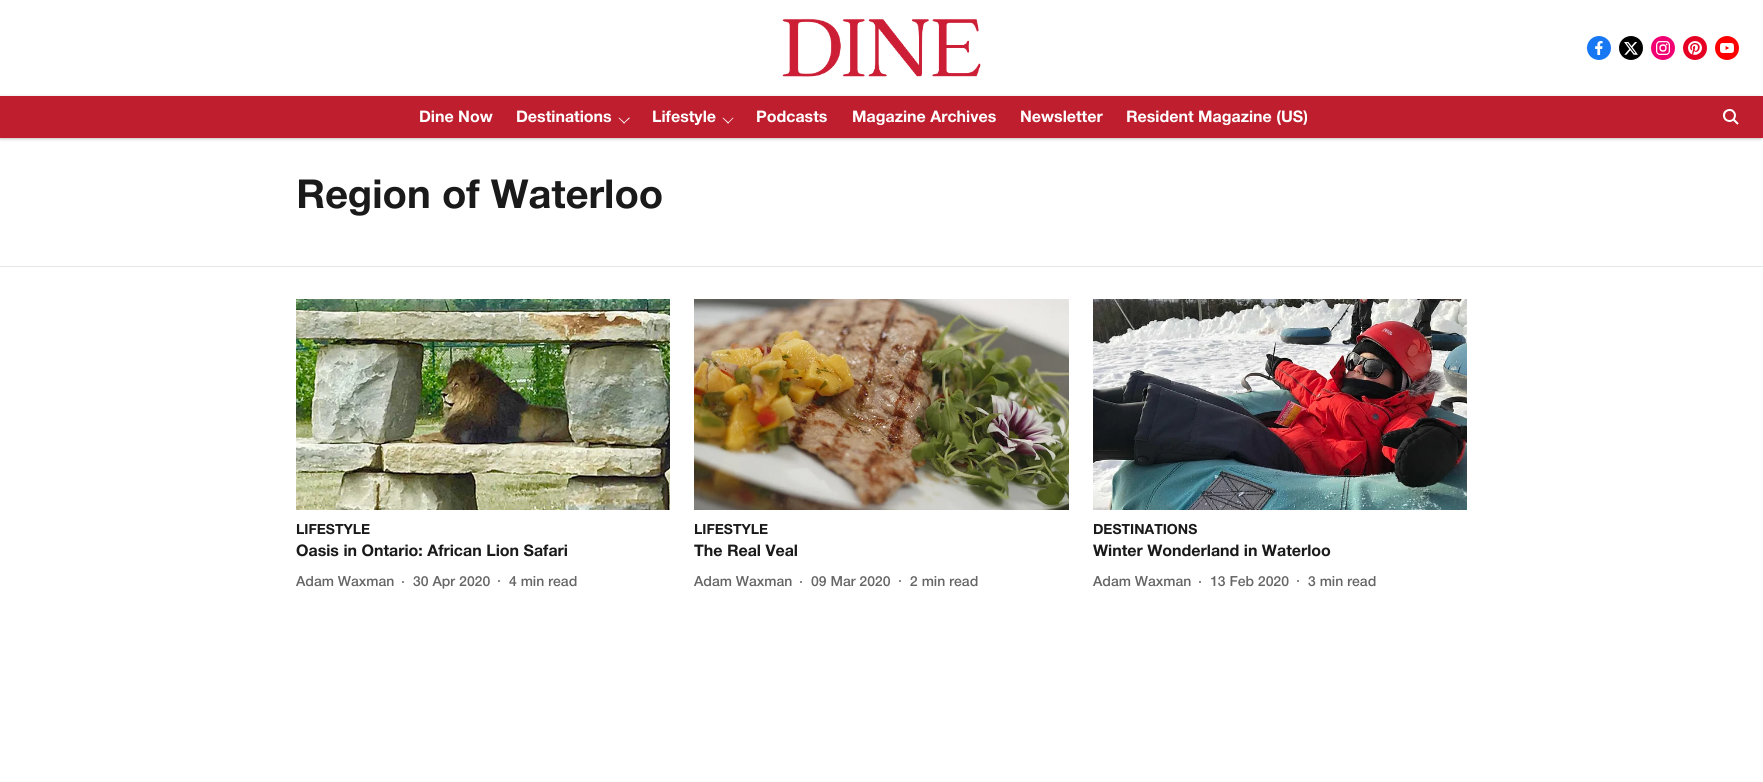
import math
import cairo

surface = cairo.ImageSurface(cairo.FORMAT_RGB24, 1763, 782)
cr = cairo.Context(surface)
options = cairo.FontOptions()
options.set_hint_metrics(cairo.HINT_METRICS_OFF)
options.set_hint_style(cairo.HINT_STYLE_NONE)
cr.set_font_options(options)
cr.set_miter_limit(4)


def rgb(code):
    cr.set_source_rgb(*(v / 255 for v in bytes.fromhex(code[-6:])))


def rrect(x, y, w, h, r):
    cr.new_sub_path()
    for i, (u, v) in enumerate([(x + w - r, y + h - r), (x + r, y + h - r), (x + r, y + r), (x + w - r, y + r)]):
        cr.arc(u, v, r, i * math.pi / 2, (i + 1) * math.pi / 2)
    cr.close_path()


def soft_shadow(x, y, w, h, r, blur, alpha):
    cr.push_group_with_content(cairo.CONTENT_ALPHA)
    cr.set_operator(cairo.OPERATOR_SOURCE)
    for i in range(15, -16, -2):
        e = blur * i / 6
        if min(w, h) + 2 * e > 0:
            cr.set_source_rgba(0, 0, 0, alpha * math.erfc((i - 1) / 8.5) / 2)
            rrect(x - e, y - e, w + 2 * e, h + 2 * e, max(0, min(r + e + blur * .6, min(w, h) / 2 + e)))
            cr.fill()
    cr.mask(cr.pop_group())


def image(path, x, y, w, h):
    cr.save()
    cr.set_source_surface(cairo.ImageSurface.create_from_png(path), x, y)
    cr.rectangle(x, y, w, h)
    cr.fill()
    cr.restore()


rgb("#ffffff")
cr.paint()
image("img/1.png", 782, 18, 199, 59)
image("img/2.png", 1587, 36, 24, 24)
image("img/3.png", 1619, 36, 24, 24)
image("img/4.png", 1651, 36, 24, 24)
image("img/5.png", 1683, 36, 24, 24)
image("img/6.png", 1715, 36, 24, 24)
rgb("#000000")
soft_shadow(0, 98, 1761, 40, 0, 2, 0.39)
rgb("#be1e2d")
cr.rectangle(0, 96, 1763, 42)
cr.fill()
rgb("#ffffff")
cr.new_path()
cr.move_to(629, 117.5)
cr.line_to(630, 118)
cr.line_to(624, 123.5)
cr.line_to(623.5, 123)
cr.close_path()
cr.fill()
cr.new_path()
cr.move_to(619, 117.5)
cr.line_to(625, 123)
cr.line_to(624, 123.5)
cr.line_to(618.5, 118)
cr.close_path()
cr.fill()
cr.new_path()
cr.move_to(733, 117.5)
cr.line_to(733.5, 118)
cr.line_to(728, 123.5)
cr.line_to(727.5, 123)
cr.close_path()
cr.fill()
cr.new_path()
cr.move_to(723, 117.5)
cr.line_to(729, 123)
cr.line_to(728, 123.5)
cr.line_to(722.5, 118)
cr.close_path()
cr.fill()
image("img/7.png", 1722, 109, 17, 16)
rgb("#e6e6e6")
cr.rectangle(0, 266, 1763, 1)
cr.fill()
image("img/8.png", 296, 299, 374, 211)
rgb("#666666")
cr.arc(403, 582, 1, 0, 2 * math.pi)
cr.fill()
cr.arc(499, 581, 1, 0, 2 * math.pi)
cr.fill()
image("img/9.png", 694, 299, 375, 211)
cr.arc(801, 582, 1, 0, 2 * math.pi)
cr.fill()
cr.arc(900, 581, 1, 0, 2 * math.pi)
cr.fill()
image("img/10.png", 1093, 299, 374, 211)
cr.arc(1200, 582, 1, 0, 2 * math.pi)
cr.fill()
cr.arc(1298, 581, 1, 0, 2 * math.pi)
cr.fill()
cr.select_font_face("Helvetica Neue", cairo.FONT_SLANT_NORMAL, cairo.FONT_WEIGHT_BOLD)
cr.set_font_size(16)
rgb("#ffffff")
for x, y, s in [
    (419, 122, "Dine Now"),
    (516, 122, "Destinations"),
    (652, 122, "Lifestyle"),
    (756, 122, "Podcasts"),
    (852, 122, "Magazine Archives"),
    (1020, 122, "Newsletter"),
    (1126, 122, "Resident Magazine (US)"),
]:
    cr.move_to(x, y)
    cr.show_text(s)
cr.set_font_size(40)
rgb("#1a1a1a")
cr.move_to(296, 208)
cr.show_text("Region of Waterloo")
cr.set_font_size(14)
cr.move_to(296, 534)
cr.show_text("LIFESTYLE")
cr.set_font_size(16)
cr.move_to(296, 556)
cr.show_text("Oasis in Ontario: African Lion Safari")
cr.select_font_face("Helvetica Neue Medium")
cr.set_font_size(14)
rgb("#666666")
for x, y, s in [
    (296, 586, "Adam Waxman"),
    (413, 586, "30 Apr 2020"),
    (509, 586, "4 min read"),
]:
    cr.move_to(x, y)
    cr.show_text(s)
cr.select_font_face("Helvetica Neue", cairo.FONT_SLANT_NORMAL, cairo.FONT_WEIGHT_BOLD)
rgb("#1a1a1a")
cr.move_to(694, 534)
cr.show_text("LIFESTYLE")
cr.set_font_size(16)
cr.move_to(694, 556)
cr.show_text("The Real Veal")
cr.select_font_face("Helvetica Neue Medium")
cr.set_font_size(14)
rgb("#666666")
for x, y, s in [
    (694, 586, "Adam Waxman"),
    (811, 586, "09 Mar 2020"),
    (910, 586, "2 min read"),
]:
    cr.move_to(x, y)
    cr.show_text(s)
cr.select_font_face("Helvetica Neue", cairo.FONT_SLANT_NORMAL, cairo.FONT_WEIGHT_BOLD)
rgb("#1a1a1a")
cr.move_to(1093, 534)
cr.show_text("DESTINATIONS")
cr.set_font_size(16)
cr.move_to(1093, 556)
cr.show_text("Winter Wonderland in Waterloo")
cr.select_font_face("Helvetica Neue Medium")
cr.set_font_size(14)
rgb("#666666")
for x, y, s in [
    (1093, 586, "Adam Waxman"),
    (1210, 586, "13 Feb 2020"),
    (1308, 586, "3 min read"),
]:
    cr.move_to(x, y)
    cr.show_text(s)
surface.write_to_png("page.png")
